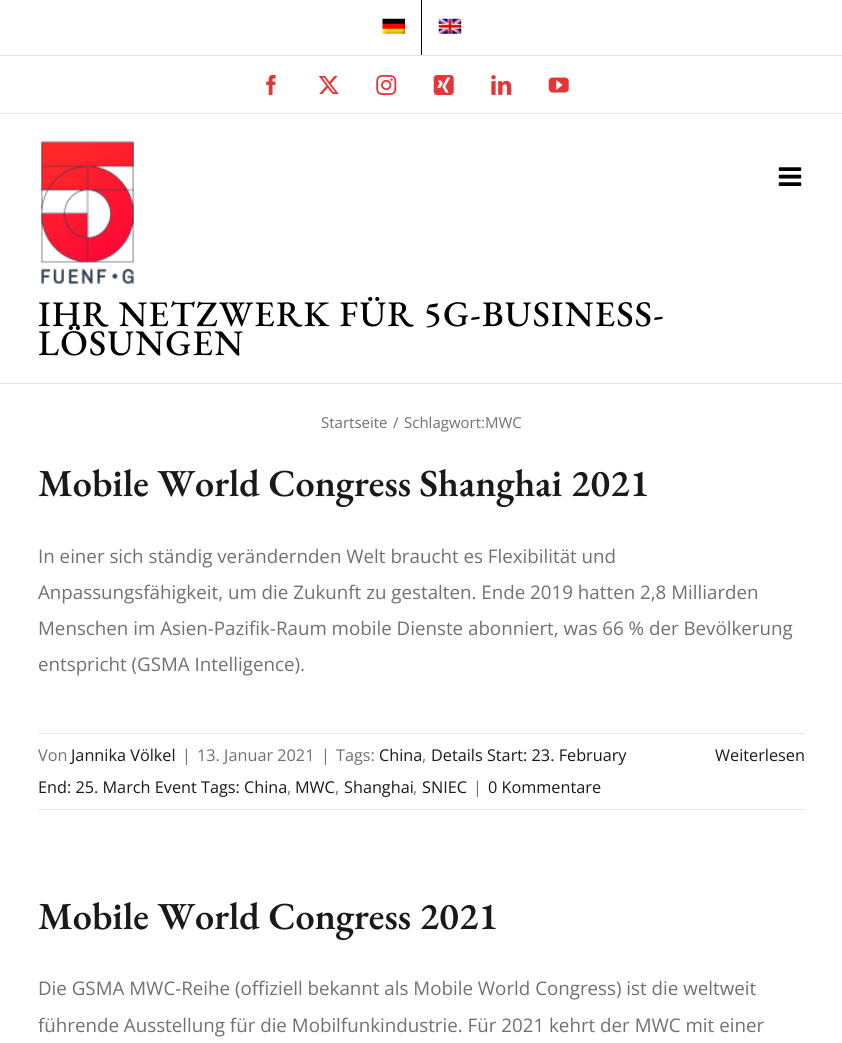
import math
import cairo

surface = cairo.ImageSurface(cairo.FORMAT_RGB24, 842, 1043)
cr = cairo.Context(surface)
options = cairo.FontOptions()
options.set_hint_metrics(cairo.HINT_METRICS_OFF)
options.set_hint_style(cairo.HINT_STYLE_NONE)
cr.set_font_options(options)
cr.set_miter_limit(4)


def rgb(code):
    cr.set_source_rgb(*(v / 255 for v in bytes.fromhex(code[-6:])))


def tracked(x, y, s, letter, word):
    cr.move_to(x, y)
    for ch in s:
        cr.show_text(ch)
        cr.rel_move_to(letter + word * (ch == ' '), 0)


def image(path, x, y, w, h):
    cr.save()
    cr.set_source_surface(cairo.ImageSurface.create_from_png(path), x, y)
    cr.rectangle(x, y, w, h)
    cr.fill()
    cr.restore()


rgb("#ffffff")
cr.paint()
rgb("#e5e5e5")
cr.rectangle(0, 113, 842, 1)
cr.fill()
cr.rectangle(0, 55, 842, 1)
cr.fill()
image("img/1.png", 382, 18, 23, 16)
rgb("#000000")
cr.rectangle(421, 0, 1, 55)
cr.fill()
image("img/2.png", 438, 18, 24, 16)
image("img/3.png", 266, 75, 10, 20)
image("img/4.png", 318, 75, 21, 20)
image("img/5.png", 376, 75, 21, 20)
image("img/6.png", 433, 75, 21, 20)
image("img/7.png", 491, 75, 21, 20)
image("img/8.png", 548, 77, 21, 16)
rgb("#e5e5e5")
cr.rectangle(0, 383, 842, 1)
cr.fill()
image("img/9.png", 778, 167, 24, 19)
image("img/10.png", 41, 141, 93, 143)
rgb("#eaeaea")
cr.rectangle(38, 733, 767, 1)
cr.fill()
cr.rectangle(38, 809, 767, 1)
cr.fill()
cr.select_font_face("EB Garamond Medium")
cr.set_font_size(36)
rgb("#000000")
tracked(38, 326, "IHR NETZWERK FÜR 5G-BUSINESS-", 1.25, 0)
tracked(38, 355, "LÖSUNGEN", 1.25, 0)
cr.select_font_face("Open Sans")
cr.set_font_size(15)
rgb("#707070")
for x, y, s in [
    (321, 428, "Startseite"),
    (393, 428, "/"),
    (404, 428, "Schlagwort:MWC"),
]:
    cr.move_to(x, y)
    cr.show_text(s)
cr.select_font_face("EB Garamond SemiBold")
cr.set_font_size(38.2)
rgb("#191919")
cr.move_to(38, 496)
cr.show_text("Mobile World Congress Shanghai 2021")
cr.select_font_face("Open Sans")
cr.set_font_size(18.75)
rgb("#707070")
for x, y, s in [
    (38, 563, "In einer sich ständig verändernden Welt braucht es Flexibilität und"),
    (38, 599, "Anpassungsfähigkeit, um die Zukunft zu gestalten. Ende 2019 hatten 2,8 Milliarden"),
    (38, 635, "Menschen im Asien-Pazifik-Raum mobile Dienste abonniert, was 66 % der Bevölkerung"),
    (38, 671, "entspricht (GSMA Intelligence)."),
]:
    cr.move_to(x, y)
    cr.show_text(s)
cr.set_font_size(16.25)
cr.move_to(38, 761)
cr.show_text("Von")
rgb("#191919")
cr.move_to(71, 761)
cr.show_text("Jannika Völkel")
rgb("#707070")
for x, y, s in [
    (182, 761, "|"),
    (197, 761, "13. Januar 2021"),
    (321, 761, "|"),
    (336, 761, "Tags:"),
]:
    cr.move_to(x, y)
    cr.show_text(s)
rgb("#191919")
cr.move_to(379, 761)
cr.show_text("China")
rgb("#707070")
cr.move_to(422, 761)
cr.show_text(",")
rgb("#191919")
cr.move_to(431, 761)
cr.show_text("Details Start: 23. February")
cr.move_to(38, 793)
cr.show_text("End: 25. March Event Tags: China")
rgb("#707070")
cr.move_to(287, 793)
cr.show_text(",")
rgb("#191919")
cr.move_to(295, 793)
cr.show_text("MWC")
rgb("#707070")
cr.move_to(335, 793)
cr.show_text(",")
rgb("#191919")
cr.move_to(344, 793)
cr.show_text("Shanghai")
rgb("#707070")
cr.move_to(413, 793)
cr.show_text(",")
rgb("#191919")
cr.move_to(422, 793)
cr.show_text("SNIEC")
rgb("#707070")
cr.move_to(473, 793)
cr.show_text("|")
rgb("#191919")
cr.move_to(488, 793)
cr.show_text("0 Kommentare")
cr.move_to(715, 761)
cr.show_text("Weiterlesen")
cr.select_font_face("EB Garamond SemiBold")
cr.set_font_size(38.2)
cr.move_to(38, 929)
cr.show_text("Mobile World Congress 2021")
cr.select_font_face("Open Sans")
cr.set_font_size(18.75)
rgb("#707070")
cr.move_to(38, 995)
cr.show_text("Die GSMA MWC-Reihe (offiziell bekannt als Mobile World Congress) ist die weltweit")
cr.move_to(38, 1032)
cr.show_text("führende Ausstellung für die Mobilfunkindustrie. Für 2021 kehrt der MWC mit einer")
surface.write_to_png("page.png")
